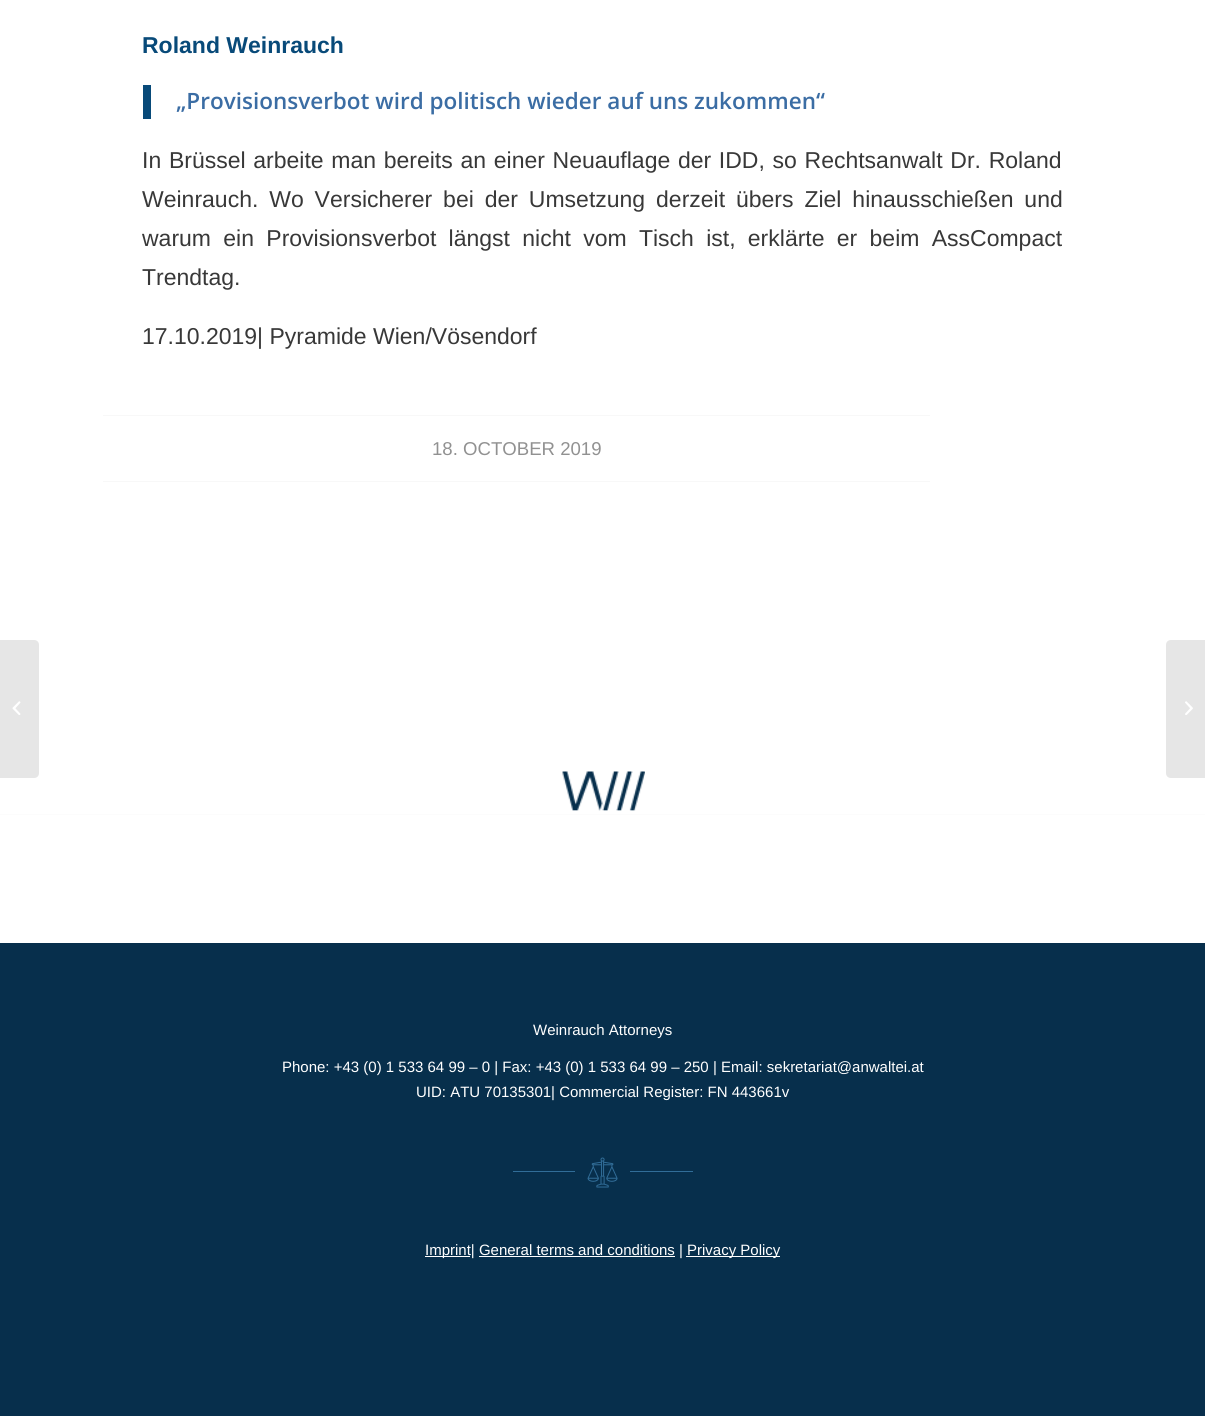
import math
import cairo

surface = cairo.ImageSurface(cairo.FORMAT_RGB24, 1205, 1416)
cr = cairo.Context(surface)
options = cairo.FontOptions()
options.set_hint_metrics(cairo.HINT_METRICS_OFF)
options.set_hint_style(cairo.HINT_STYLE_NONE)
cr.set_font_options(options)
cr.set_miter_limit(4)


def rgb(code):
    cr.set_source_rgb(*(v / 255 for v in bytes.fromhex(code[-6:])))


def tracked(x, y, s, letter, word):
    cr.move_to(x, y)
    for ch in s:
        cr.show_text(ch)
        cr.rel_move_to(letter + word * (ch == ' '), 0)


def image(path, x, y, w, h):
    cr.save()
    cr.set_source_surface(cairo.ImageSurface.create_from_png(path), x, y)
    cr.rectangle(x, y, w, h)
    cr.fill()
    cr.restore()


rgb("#ffffff")
cr.paint()
rgb("#e6e6e6")
cr.new_path()
cr.move_to(0, 640)
cr.line_to(34, 640)
cr.curve_to(37, 640, 39, 642, 39, 645)
cr.line_to(39, 773)
cr.curve_to(39, 776, 37, 778, 34, 778)
cr.line_to(0, 778)
cr.close_path()
cr.fill()
image("img/1.png", 12, 701, 9, 14)
for x, y, w, h, color in [
    (143, 85, 8, 34, "#084a79"),
    (103, 415, 827, 1, "#f8f8f8"),
    (103, 481, 827, 1, "#f8f8f8"),
]:
    rgb(color)
    cr.rectangle(x, y, w, h)
    cr.fill()
image("img/2.png", 562, 771, 83, 40)
for x, y, w, h, color in [
    (0, 814, 1205, 1, "#fcfcfc"),
    (0, 943, 1205, 473, "#072f4c"),
    (513, 1171, 62, 1, "#316d98"),
]:
    rgb(color)
    cr.rectangle(x, y, w, h)
    cr.fill()
image("img/3.png", 587, 1157, 31, 31)
for x, y, w, h, color in [
    (630, 1171, 63, 1, "#316d98"),
    (425, 1256, 45, 1, "#ffffff"),
    (686, 1256, 94, 1, "#ffffff"),
    (479, 1256, 196, 1, "#ffffff"),
]:
    rgb(color)
    cr.rectangle(x, y, w, h)
    cr.fill()
rgb("#e6e6e6")
cr.new_path()
cr.move_to(1171, 640)
cr.line_to(1205, 640)
cr.line_to(1205, 778)
cr.line_to(1171, 778)
cr.curve_to(1168, 778, 1166, 776, 1166, 773)
cr.line_to(1166, 645)
cr.curve_to(1166, 642, 1168, 640, 1171, 640)
cr.close_path()
cr.fill()
image("img/4.png", 1185, 701, 8, 14)
cr.select_font_face("Liberation Sans", cairo.FONT_SLANT_NORMAL, cairo.FONT_WEIGHT_BOLD)
cr.set_font_size(23)
rgb("#084a79")
cr.move_to(142, 53)
cr.show_text("Roland Weinrauch")
cr.select_font_face("Open Sans SemiBold")
cr.set_font_size(22.5)
rgb("#3b6da4")
cr.move_to(176, 109)
cr.show_text("„Provisionsverbot wird politisch wieder auf uns zukommen“")
cr.select_font_face("Liberation Sans")
cr.set_font_size(23)
rgb("#383838")
tracked(142, 168, "In Brüssel arbeite man bereits an einer Neuauflage der IDD, so Rechtsanwalt Dr. Roland", 0, 1.3)
tracked(142, 207, "Weinrauch. Wo Versicherer bei der Umsetzung derzeit übers Ziel hinausschießen und", 0, 4.5)
tracked(142, 246, "warum ein Provisionsverbot längst nicht vom Tisch ist, erklärte er beim AssCompact", 0, 5.9)
cr.move_to(142, 285)
cr.show_text("Trendtag.")
cr.move_to(142, 344)
cr.show_text("17.10.2019| Pyramide Wien/Vösendorf")
cr.set_font_size(18.6)
rgb("#919191")
cr.move_to(432, 455)
cr.show_text("18. OCTOBER 2019")
cr.set_font_size(15)
rgb("#ffffff")
for x, y, s in [
    (533, 1035, "Weinrauch Attorneys"),
    (282, 1072, "Phone: +43 (0) 1 533 64 99 – 0 | Fax: +43 (0) 1 533 64 99 – 250 | Email: sekretariat@anwaltei.at"),
    (416, 1097, "UID: ATU 70135301| Commercial Register: FN 443661v"),
    (425, 1255, "Imprint| General terms and conditions |"),
    (687, 1255, "Privacy Policy"),
]:
    cr.move_to(x, y)
    cr.show_text(s)
surface.write_to_png("page.png")
